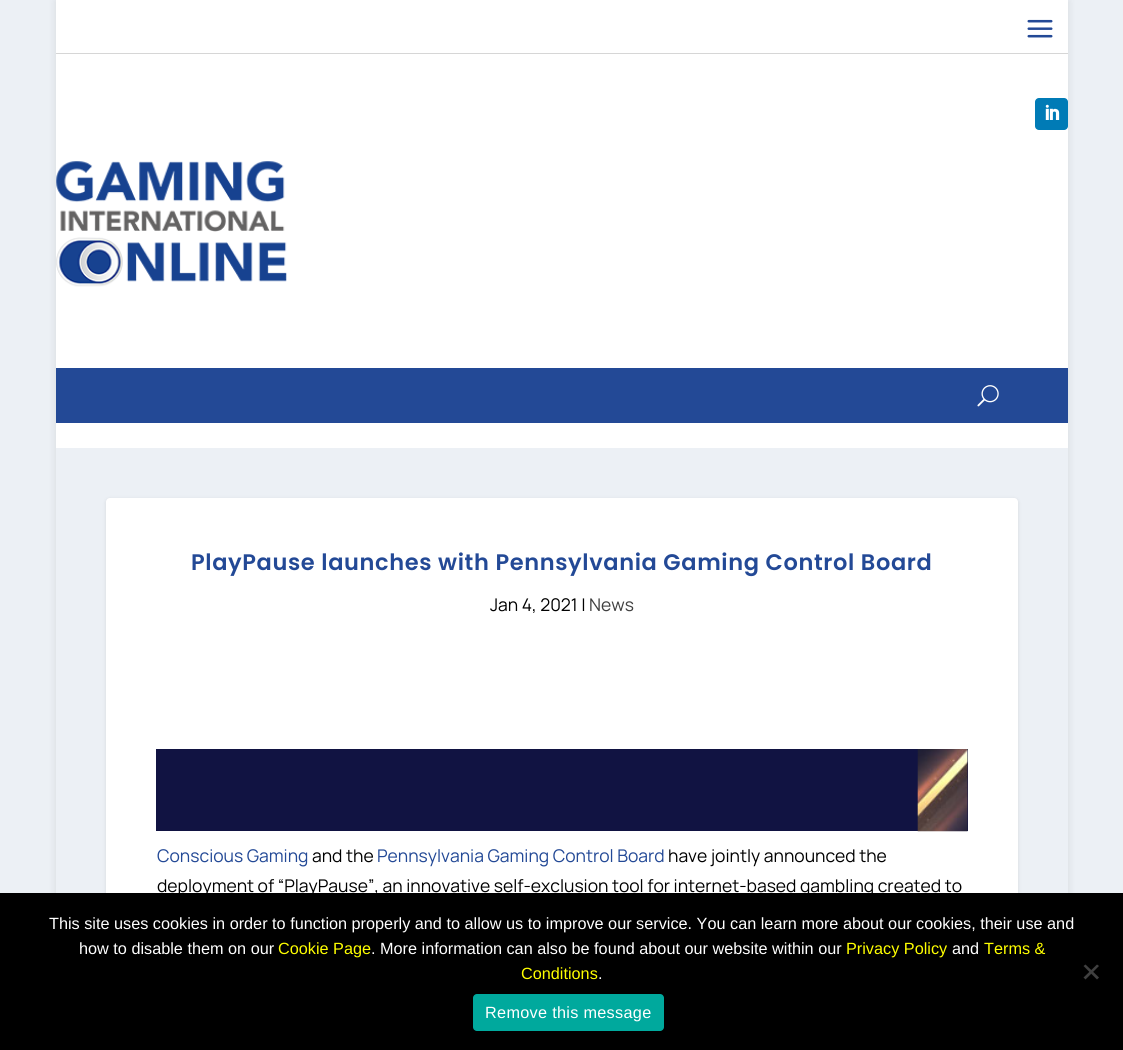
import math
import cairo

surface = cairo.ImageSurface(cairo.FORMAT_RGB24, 1123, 1050)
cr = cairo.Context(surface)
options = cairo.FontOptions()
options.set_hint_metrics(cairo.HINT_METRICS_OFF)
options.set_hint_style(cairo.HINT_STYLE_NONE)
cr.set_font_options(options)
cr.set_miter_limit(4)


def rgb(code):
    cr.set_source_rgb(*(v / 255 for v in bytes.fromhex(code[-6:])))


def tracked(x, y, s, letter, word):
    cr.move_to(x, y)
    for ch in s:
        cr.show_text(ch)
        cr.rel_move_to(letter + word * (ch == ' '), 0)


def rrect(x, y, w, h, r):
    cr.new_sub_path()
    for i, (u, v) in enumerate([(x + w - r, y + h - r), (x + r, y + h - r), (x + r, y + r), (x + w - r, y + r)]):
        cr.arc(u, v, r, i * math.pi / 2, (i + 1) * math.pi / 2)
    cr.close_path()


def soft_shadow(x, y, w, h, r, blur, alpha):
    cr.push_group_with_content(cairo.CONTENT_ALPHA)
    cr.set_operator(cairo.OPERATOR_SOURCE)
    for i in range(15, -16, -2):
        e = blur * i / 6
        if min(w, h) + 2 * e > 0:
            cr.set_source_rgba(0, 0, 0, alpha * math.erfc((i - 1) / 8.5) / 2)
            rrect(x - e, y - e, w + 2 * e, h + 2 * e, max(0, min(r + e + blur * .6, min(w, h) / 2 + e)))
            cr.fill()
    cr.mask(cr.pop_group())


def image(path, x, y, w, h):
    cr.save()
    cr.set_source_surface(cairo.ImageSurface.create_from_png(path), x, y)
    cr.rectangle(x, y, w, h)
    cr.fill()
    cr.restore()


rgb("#ecf0f5")
cr.paint()
cr.save()
cr.set_fill_rule(cairo.FILL_RULE_EVEN_ODD)
cr.new_path()
cr.move_to(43, 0)
cr.line_to(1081, 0)
cr.line_to(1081, 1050)
cr.line_to(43, 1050)
cr.close_path()
cr.move_to(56, 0)
cr.line_to(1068, 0)
cr.line_to(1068, 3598)
cr.line_to(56, 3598)
cr.close_path()
cr.clip()
rgb("#000000")
soft_shadow(56, 1, 1012, 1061, 0, 4, 0.1)
cr.restore()
rgb("#ffffff")
cr.rectangle(56, 0, 1012, 368)
cr.fill()
rgb("#d6d6d6")
cr.rectangle(56, 53, 1012, 1)
cr.fill()
image("img/1.png", 1027, 19, 26, 19)
rgb("#007bb6")
rrect(1035, 98, 33, 32, 4)
cr.fill()
image("img/2.png", 1045, 104, 15, 16)
image("img/3.png", 56, 161, 231, 126)
rgb("#234996")
cr.rectangle(56, 368, 1012, 55)
cr.fill()
image("img/4.png", 977, 385, 22, 22)
rgb("#ffffff")
cr.rectangle(56, 423, 1012, 25)
cr.fill()
rgb("#000000")
soft_shadow(106, 499, 912, 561, 4, 2, 0.1)
rgb("#ffffff")
rrect(106, 498, 912, 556, 4)
cr.fill()
rgb("#111342")
cr.rectangle(156, 749, 812, 82)
cr.fill()
image("img/5.png", 917, 749, 51, 83)
rgb("#000000")
cr.rectangle(0, 893, 1123, 157)
cr.fill()
rgb("#404040")
cr.new_path()
cr.move_to(1097, 964.5)
cr.line_to(1099, 966)
cr.line_to(1085.5, 979.5)
cr.line_to(1083.5, 977.5)
cr.close_path()
cr.fill()
cr.new_path()
cr.move_to(1083.5, 966)
cr.line_to(1085.5, 964.5)
cr.line_to(1099, 977.5)
cr.line_to(1097, 979.5)
cr.close_path()
cr.fill()
rgb("#00a99d")
rrect(473, 994, 191, 37, 4)
cr.fill()
cr.select_font_face("Poppins SemiBold")
cr.set_font_size(22.5)
rgb("#234996")
tracked(191, 570, "PlayPause launches with Pennsylvania Gaming Control Board", 0.62, 0)
cr.select_font_face("Manrope")
cr.set_font_size(17.5)
rgb("#000000")
cr.move_to(490, 611)
cr.show_text("Jan 4, 2021 |")
rgb("#404040")
cr.move_to(589, 611)
cr.show_text("News")
rgb("#234996")
cr.move_to(157, 862)
cr.show_text("Conscious Gaming")
rgb("#000000")
cr.move_to(312, 862)
cr.show_text("and the")
rgb("#234996")
cr.move_to(377, 862)
cr.show_text("Pennsylvania Gaming Control Board")
rgb("#000000")
cr.move_to(668, 862)
cr.show_text("have jointly announced the")
cr.move_to(157, 892)
cr.show_text("deployment of “PlayPause”, an innovative self-exclusion tool for internet-based gambling created to")
cr.select_font_face("Liberation Sans")
cr.set_font_size(16.25)
rgb("#ffffff")
cr.move_to(49, 929)
cr.show_text("This site uses cookies in order to function properly and to allow us to improve our service. You can learn more about our cookies, their use and")
cr.move_to(79, 954)
cr.show_text("how to disable them on our")
rgb("#ffff00")
cr.move_to(278, 954)
cr.show_text("Cookie Page")
rgb("#ffffff")
cr.move_to(371, 954)
cr.show_text(". More information can also be found about our website within our")
rgb("#ffff00")
cr.move_to(846, 954)
cr.show_text("Privacy Policy")
rgb("#ffffff")
cr.move_to(952, 954)
cr.show_text("and")
rgb("#ffff00")
cr.move_to(984, 954)
cr.show_text("Terms &")
cr.move_to(521, 979)
cr.show_text("Conditions")
rgb("#ffffff")
cr.move_to(598, 979)
cr.show_text(".")
tracked(485, 1018, "Remove this message", 0.3, 0)
surface.write_to_png("page.png")
